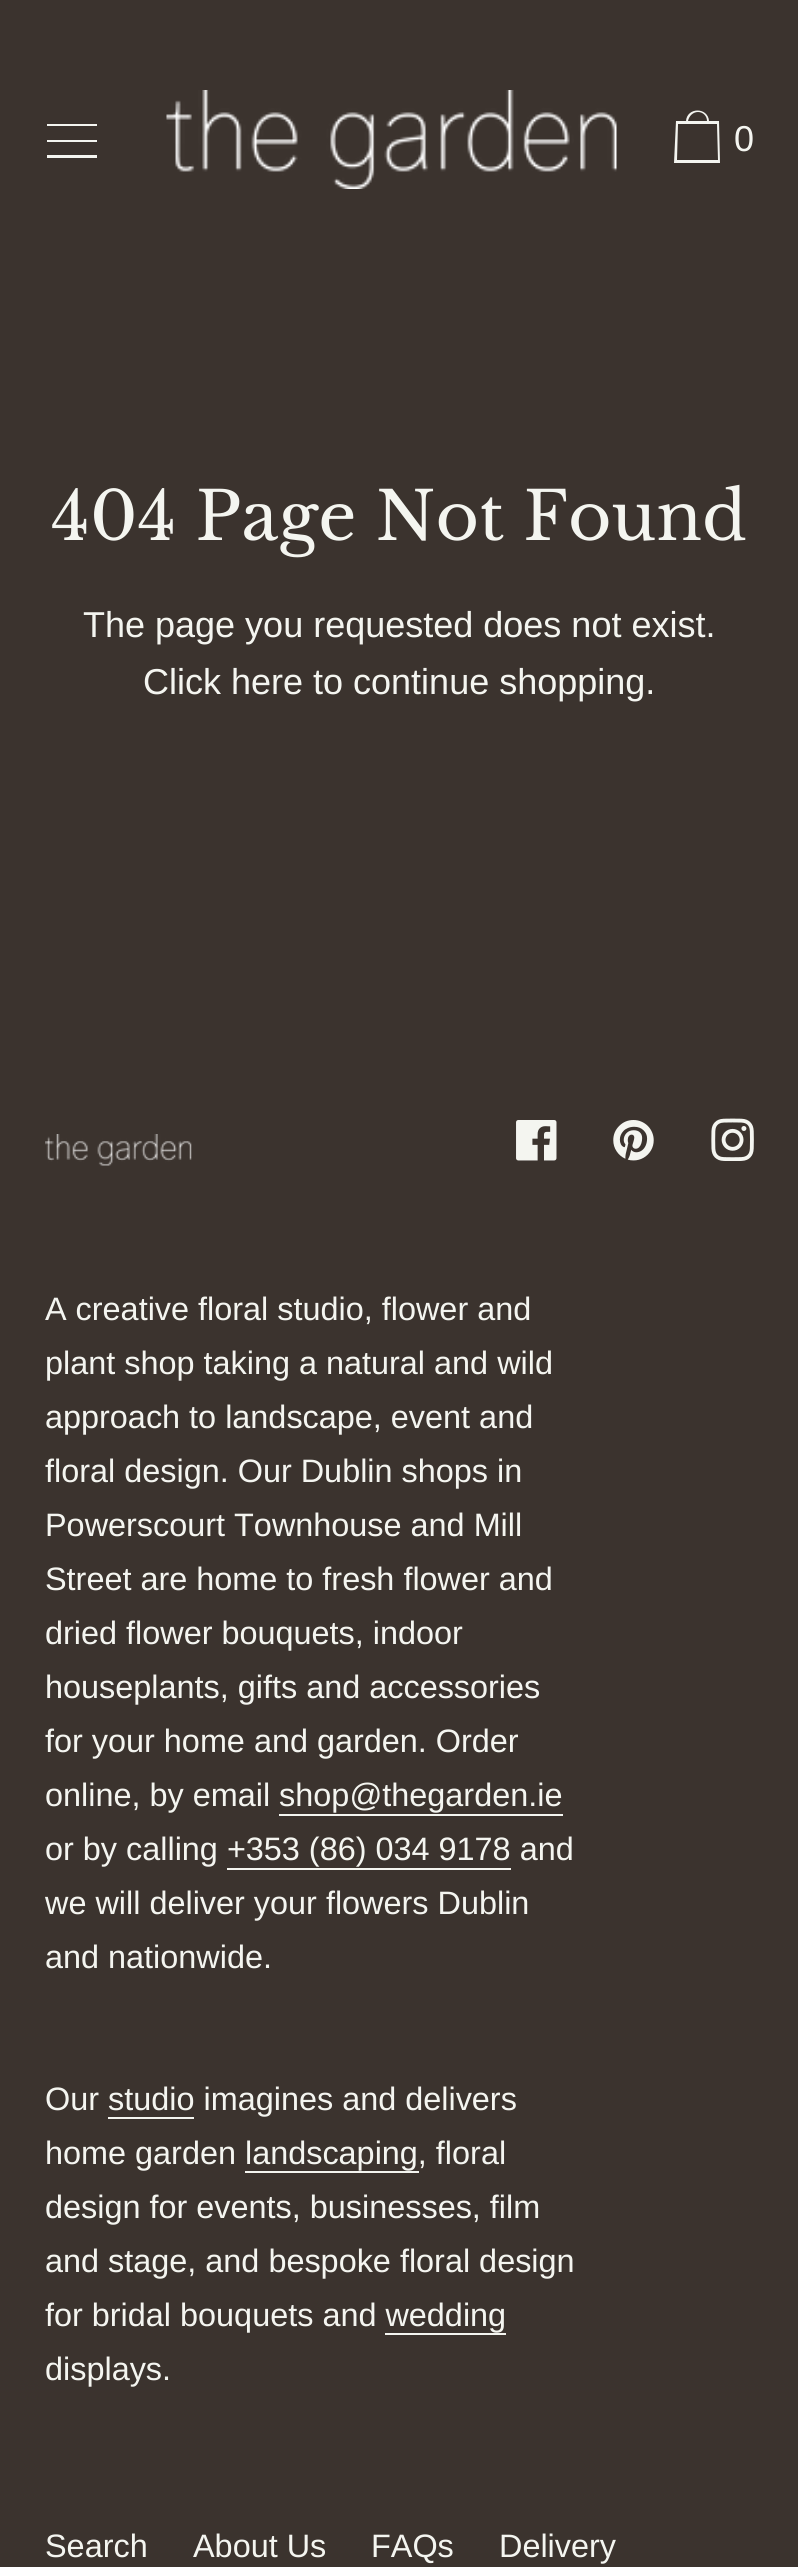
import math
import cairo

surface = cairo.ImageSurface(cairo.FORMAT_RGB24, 798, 2567)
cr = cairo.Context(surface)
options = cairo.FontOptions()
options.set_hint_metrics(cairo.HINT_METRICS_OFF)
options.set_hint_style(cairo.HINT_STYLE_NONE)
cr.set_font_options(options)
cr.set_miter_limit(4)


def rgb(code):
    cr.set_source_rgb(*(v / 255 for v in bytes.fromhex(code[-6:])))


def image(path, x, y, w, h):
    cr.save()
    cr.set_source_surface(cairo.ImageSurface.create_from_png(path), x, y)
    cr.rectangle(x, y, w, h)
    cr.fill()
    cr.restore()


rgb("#3b332e")
cr.paint()
rgb("#f4f5f0")
cr.set_fill_rule(cairo.FILL_RULE_EVEN_ODD)
cr.new_path()
cr.move_to(47, 155)
cr.line_to(97, 155)
cr.line_to(97, 158)
cr.line_to(47, 158)
cr.close_path()
cr.move_to(47, 140)
cr.line_to(97, 140)
cr.line_to(97, 142)
cr.line_to(47, 142)
cr.close_path()
cr.move_to(47, 124)
cr.line_to(97, 124)
cr.line_to(97, 126)
cr.line_to(47, 126)
cr.close_path()
cr.fill()
image("img/1.png", 166, 90, 451, 99)
cr.new_path()
cr.move_to(680, 160)
cr.line_to(677, 160)
cr.line_to(678, 124)
cr.line_to(717, 124)
cr.line_to(718, 160)
cr.close_path()
cr.move_to(698, 112)
cr.curve_to(703, 112, 707, 116, 707, 121)
cr.line_to(688, 121)
cr.curve_to(689, 116, 693, 112, 698, 112)
cr.close_path()
cr.move_to(719, 121)
cr.line_to(709, 121)
cr.curve_to(708, 107, 687, 107, 686, 121)
cr.line_to(676, 121)
cr.line_to(674, 163)
cr.line_to(720, 163)
cr.close_path()
cr.fill()
image("img/2.png", 45, 1134, 147, 32)
image("img/3.png", 516, 1120, 41, 41)
image("img/4.png", 613, 1120, 41, 41)
image("img/5.png", 711, 1118, 43, 43)
for x, y, w, h, color in [
    (279, 1814, 284, 2, "#f4f5f0"),
    (227, 1868, 284, 2, "#f4f5f0"),
    (108, 2117, 86, 2, "#f4f5f0"),
    (245, 2171, 174, 2, "#f4f5f0"),
    (385, 2333, 121, 2, "#f4f5f0"),
]:
    rgb(color)
    cr.rectangle(x, y, w, h)
    cr.fill()
cr.select_font_face("Arimo")
cr.set_font_size(36)
cr.move_to(734, 151)
cr.show_text("0")
cr.select_font_face("Libre Baskerville")
cr.set_font_size(66.6)
cr.move_to(51, 540)
cr.show_text("404 Page Not Found")
cr.select_font_face("Arimo")
cr.set_font_size(36)
cr.move_to(83, 637)
cr.show_text("The page you requested does not exist.")
cr.move_to(143, 694)
cr.show_text("Click here to continue shopping.")
cr.set_font_size(32.4)
for x, y, s in [
    (45, 1320, "A creative floral studio, flower and"),
    (45, 1374, "plant shop taking a natural and wild"),
    (45, 1428, "approach to landscape, event and"),
    (45, 1482, "floral design. Our Dublin shops in"),
    (45, 1536, "Powerscourt Townhouse and Mill"),
    (45, 1590, "Street are home to fresh flower and"),
    (45, 1644, "dried flower bouquets, indoor"),
    (45, 1698, "houseplants, gifts and accessories"),
    (45, 1752, "for your home and garden. Order"),
    (45, 1806, "online, by email shop@thegarden.ie"),
    (45, 1860, "or by calling +353 (86) 034 9178 and"),
    (45, 1914, "we will deliver your flowers Dublin"),
    (45, 1968, "and nationwide."),
    (45, 2110, "Our studio imagines and delivers"),
    (45, 2164, "home garden landscaping, floral"),
    (45, 2218, "design for events, businesses, film"),
    (45, 2272, "and stage, and bespoke floral design"),
    (45, 2326, "for bridal bouquets and wedding"),
    (45, 2380, "displays."),
    (45, 2557, "Search"),
    (193, 2557, "About Us"),
    (371, 2557, "FAQs"),
    (499, 2557, "Delivery"),
]:
    cr.move_to(x, y)
    cr.show_text(s)
surface.write_to_png("page.png")
